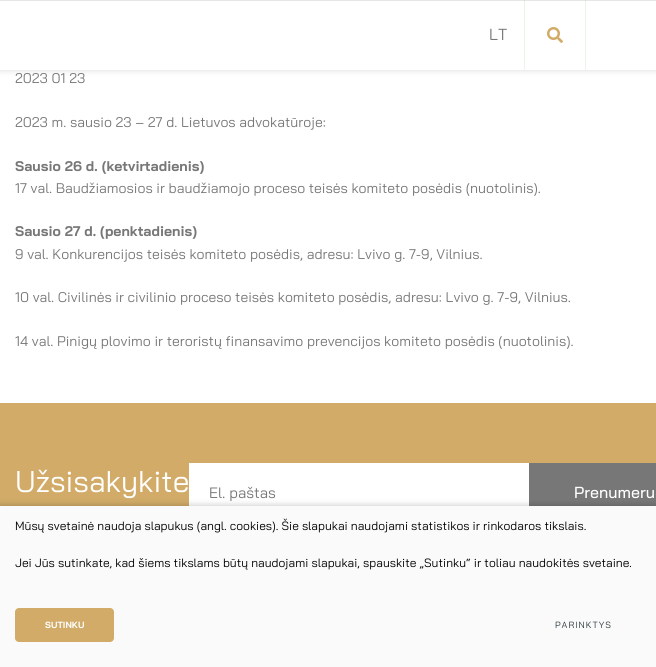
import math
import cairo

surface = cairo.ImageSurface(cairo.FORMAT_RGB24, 656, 667)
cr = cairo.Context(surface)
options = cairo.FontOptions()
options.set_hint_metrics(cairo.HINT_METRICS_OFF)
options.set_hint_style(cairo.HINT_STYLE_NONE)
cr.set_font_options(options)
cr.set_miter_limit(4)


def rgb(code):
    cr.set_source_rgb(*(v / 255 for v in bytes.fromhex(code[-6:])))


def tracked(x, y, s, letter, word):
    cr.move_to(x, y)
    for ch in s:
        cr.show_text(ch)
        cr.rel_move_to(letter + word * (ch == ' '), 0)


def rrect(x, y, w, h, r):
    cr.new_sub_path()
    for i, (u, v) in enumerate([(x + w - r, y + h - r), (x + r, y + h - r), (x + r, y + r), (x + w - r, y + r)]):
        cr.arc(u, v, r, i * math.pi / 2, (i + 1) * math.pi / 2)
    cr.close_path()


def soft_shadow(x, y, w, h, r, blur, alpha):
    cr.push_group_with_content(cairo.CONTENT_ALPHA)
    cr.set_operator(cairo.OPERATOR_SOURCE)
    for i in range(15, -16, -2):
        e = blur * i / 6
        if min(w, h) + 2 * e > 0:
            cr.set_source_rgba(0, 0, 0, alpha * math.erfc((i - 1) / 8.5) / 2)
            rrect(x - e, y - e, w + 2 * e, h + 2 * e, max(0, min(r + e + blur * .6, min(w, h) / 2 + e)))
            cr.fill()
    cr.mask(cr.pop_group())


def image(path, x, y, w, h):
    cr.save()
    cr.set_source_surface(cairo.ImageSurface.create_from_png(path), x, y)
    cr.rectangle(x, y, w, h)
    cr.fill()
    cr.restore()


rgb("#ffffff")
cr.paint()
rgb("#000000")
soft_shadow(0, 0, 656, 70, 0, 3.5, 0.15)
for x, y, w, h, color in [
    (0, 1, 656, 69, "#ffffff"),
    (0, 0, 656, 1, "#e6e6e6"),
    (524, 0, 1, 70, "#ecf4ea"),
    (524, 0, 1, 1, "#d4dcd3"),
    (585, 0, 1, 70, "#ecf4ea"),
    (585, 0, 1, 1, "#d4dcd3"),
]:
    rgb(color)
    cr.rectangle(x, y, w, h)
    cr.fill()
image("img/1.png", 547, 27, 16, 16)
for x, y, w, h, color in [
    (0, 403, 656, 103, "#d1ab67"),
    (189, 463, 340, 43, "#ffffff"),
    (529, 463, 127, 43, "#777777"),
]:
    rgb(color)
    cr.rectangle(x, y, w, h)
    cr.fill()
rgb("#000000")
soft_shadow(0, 506, 656, 161, 0, 3.5, 0.25)
rgb("#fafafa")
cr.rectangle(0, 506, 656, 161)
cr.fill()
rgb("#d1ab67")
rrect(15, 608, 99, 34, 4)
cr.fill()
cr.select_font_face("Bai Jamjuree")
cr.set_font_size(16)
rgb("#777777")
cr.move_to(489, 40)
cr.show_text("LT")
cr.set_font_size(14)
cr.move_to(15, 83)
cr.show_text("2023 01 23")
cr.move_to(15, 127)
cr.show_text("2023 m. sausio 23 – 27 d. Lietuvos advokatūroje:")
cr.select_font_face("Bai Jamjuree", cairo.FONT_SLANT_NORMAL, cairo.FONT_WEIGHT_BOLD)
cr.move_to(15, 171)
cr.show_text("Sausio 26 d. (ketvirtadienis)")
cr.select_font_face("Bai Jamjuree")
cr.move_to(15, 193)
cr.show_text("17 val. Baudžiamosios ir baudžiamojo proceso teisės komiteto posėdis (nuotolinis).")
cr.select_font_face("Bai Jamjuree", cairo.FONT_SLANT_NORMAL, cairo.FONT_WEIGHT_BOLD)
cr.move_to(15, 236)
cr.show_text("Sausio 27 d. (penktadienis)")
cr.select_font_face("Bai Jamjuree")
for x, y, s in [
    (15, 259, "9 val. Konkurencijos teisės komiteto posėdis, adresu: Lvivo g. 7-9, Vilnius."),
    (15, 302, "10 val. Civilinės ir civilinio proceso teisės komiteto posėdis, adresu: Lvivo g. 7-9, Vilnius."),
    (15, 346, "14 val. Pinigų plovimo ir teroristų finansavimo prevencijos komiteto posėdis (nuotolinis)."),
]:
    cr.move_to(x, y)
    cr.show_text(s)
cr.set_font_size(30)
rgb("#ffffff")
cr.move_to(15, 492)
cr.show_text("Užsisakykite")
cr.set_font_size(15)
rgb("#777777")
cr.move_to(209, 498)
cr.show_text("El. paštas")
cr.select_font_face("Bai Jamjuree Medium")
cr.set_font_size(16)
rgb("#ffffff")
cr.move_to(574, 498)
cr.show_text("Prenumeru")
cr.select_font_face("Bai Jamjuree")
cr.set_font_size(12)
rgb("#000000")
cr.move_to(15, 530)
cr.show_text("Mūsų svetainė naudoja slapukus (angl. cookies). Šie slapukai naudojami statistikos ir rinkodaros tikslais.")
cr.move_to(15, 567)
cr.show_text("Jei Jūs sutinkate, kad šiems tikslams būtų naudojami slapukai, spauskite „Sutinku“ ir toliau naudokitės svetaine.")
cr.select_font_face("Bai Jamjuree", cairo.FONT_SLANT_NORMAL, cairo.FONT_WEIGHT_BOLD)
cr.set_font_size(9)
rgb("#ffffff")
cr.move_to(45, 628)
cr.show_text("SUTINKU")
cr.select_font_face("Bai Jamjuree")
rgb("#263238")
tracked(555, 628, "PARINKTYS", 1, 0)
surface.write_to_png("page.png")
